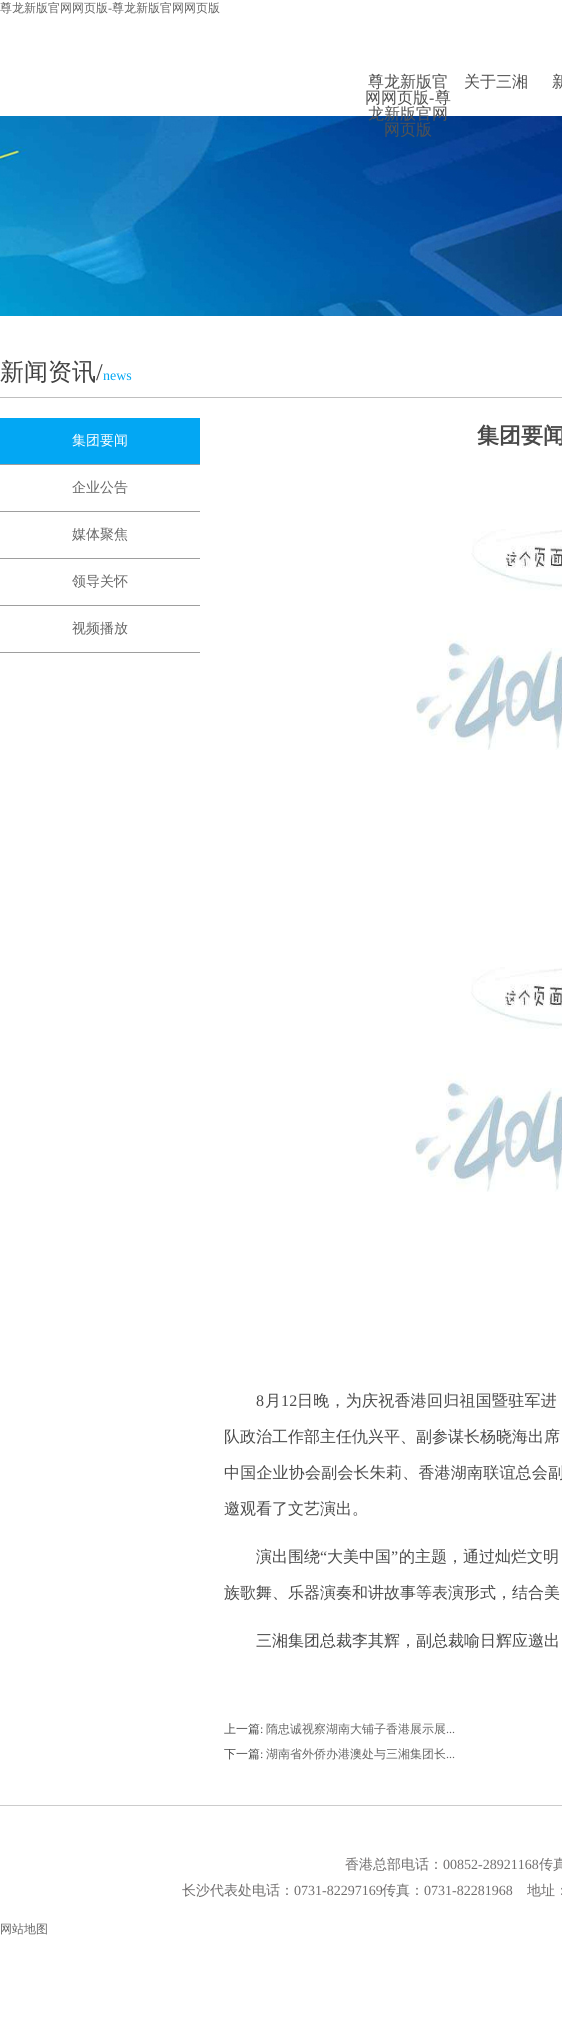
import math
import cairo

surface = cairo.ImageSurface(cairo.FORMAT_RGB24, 562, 2044)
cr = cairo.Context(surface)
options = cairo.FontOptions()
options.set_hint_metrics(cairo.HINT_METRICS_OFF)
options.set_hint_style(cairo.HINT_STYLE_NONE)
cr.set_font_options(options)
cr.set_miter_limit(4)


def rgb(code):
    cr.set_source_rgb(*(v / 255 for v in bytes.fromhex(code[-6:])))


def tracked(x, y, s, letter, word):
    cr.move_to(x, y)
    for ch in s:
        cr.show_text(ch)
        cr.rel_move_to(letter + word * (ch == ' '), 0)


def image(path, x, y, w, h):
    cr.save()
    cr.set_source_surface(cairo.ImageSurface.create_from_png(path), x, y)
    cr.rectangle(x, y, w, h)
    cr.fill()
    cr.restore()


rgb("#ffffff")
cr.paint()
image("img/1.png", 0, 116, 562, 200)
for x, y, w, h, color in [
    (0, 397, 562, 1, "#bfbfbf"),
    (0, 418, 200, 46, "#03a7f3"),
    (0, 464, 200, 1, "#9e9e9e"),
    (0, 511, 200, 1, "#9e9e9e"),
    (0, 558, 200, 1, "#9e9e9e"),
    (0, 605, 200, 1, "#9e9e9e"),
    (0, 652, 200, 1, "#9e9e9e"),
]:
    rgb(color)
    cr.rectangle(x, y, w, h)
    cr.fill()
image("img/2.png", 416, 529, 146, 221)
image("img/3.png", 415, 967, 147, 225)
rgb("#cccccc")
cr.rectangle(0, 1805, 562, 1)
cr.fill()
cr.select_font_face("WenQuanYi Zen Hei Medium")
cr.set_font_size(12)
rgb("#666666")
cr.move_to(0, 12)
cr.show_text("尊龙新版官网网页版")
cr.select_font_face("Liberation Serif")
cr.move_to(108, 12)
cr.show_text("-")
cr.select_font_face("WenQuanYi Zen Hei Medium")
cr.move_to(112, 12)
cr.show_text("尊龙新版官网网页版")
cr.set_font_size(16)
rgb("#515151")
cr.move_to(368, 87)
cr.show_text("尊龙新版官")
cr.move_to(365, 103)
cr.show_text("网网页版")
cr.select_font_face("Liberation Serif")
cr.move_to(429, 103)
cr.show_text("-")
cr.select_font_face("WenQuanYi Zen Hei Medium")
for x, y, s in [
    (435, 103, "尊"),
    (368, 119, "龙新版官网"),
    (384, 135, "网页版"),
    (464, 87, "关于三湘"),
    (552, 87, "新"),
]:
    cr.move_to(x, y)
    cr.show_text(s)
cr.set_font_size(24)
rgb("#404040")
cr.move_to(0, 380)
cr.show_text("新闻资讯")
cr.select_font_face("Liberation Serif")
cr.move_to(96, 380)
cr.show_text("/")
cr.set_font_size(14)
rgb("#03a7f3")
cr.move_to(103, 380)
cr.show_text("news")
cr.select_font_face("WenQuanYi Zen Hei Medium")
rgb("#ffffff")
cr.move_to(72, 445)
cr.show_text("集团要闻")
rgb("#666666")
for x, y, s in [
    (72, 492, "企业公告"),
    (72, 539, "媒体聚焦"),
    (72, 586, "领导关怀"),
    (72, 633, "视频播放"),
]:
    cr.move_to(x, y)
    cr.show_text(s)
cr.select_font_face("WenQuanYi Zen Hei", cairo.FONT_SLANT_NORMAL, cairo.FONT_WEIGHT_BOLD)
cr.set_font_size(22)
rgb("#494949")
cr.move_to(477, 443)
cr.show_text("集团要闻")
cr.select_font_face("Liberation Serif")
cr.set_font_size(16)
tracked(256, 1406, "8", 0.25, 0)
cr.select_font_face("WenQuanYi Zen Hei Medium")
tracked(265, 1406, "月", 0.25, 0)
cr.select_font_face("Liberation Serif")
tracked(281, 1406, "12", 0.25, 0)
cr.select_font_face("WenQuanYi Zen Hei Medium")
tracked(297, 1406, "日晚，为庆祝香港回归祖国暨驻军进", 0.25, 0)
cr.move_to(224, 1442)
cr.show_text("队政治工作部主任仇兴平、副参谋长杨晓海出席")
tracked(224, 1478, "中国企业协会副会长朱莉、香港湖南联谊总会副", 0.2, 0)
cr.move_to(224, 1514)
cr.show_text("邀观看了文艺演出。")
cr.move_to(256, 1562)
cr.show_text("演出围绕")
cr.select_font_face("Liberation Serif")
cr.move_to(320, 1562)
cr.show_text("“")
cr.select_font_face("WenQuanYi Zen Hei Medium")
cr.move_to(327, 1562)
cr.show_text("大美中国")
cr.select_font_face("Liberation Serif")
cr.move_to(391, 1562)
cr.show_text("”")
cr.select_font_face("WenQuanYi Zen Hei Medium")
for x, y, s in [
    (399, 1562, "的主题，通过灿烂文明"),
    (224, 1598, "族歌舞、乐器演奏和讲故事等表演形式，结合美"),
    (256, 1646, "三湘集团总裁李其辉，副总裁喻日辉应邀出"),
]:
    cr.move_to(x, y)
    cr.show_text(s)
cr.set_font_size(12)
cr.move_to(224, 1733)
cr.show_text("上一篇")
cr.select_font_face("Liberation Serif")
cr.move_to(260, 1733)
cr.show_text(":")
cr.select_font_face("WenQuanYi Zen Hei Medium")
rgb("#666666")
cr.move_to(266, 1733)
cr.show_text("隋忠诚视察湖南大铺子香港展示展")
cr.select_font_face("Liberation Serif")
cr.move_to(446, 1733)
cr.show_text("...")
cr.select_font_face("WenQuanYi Zen Hei Medium")
rgb("#494949")
cr.move_to(224, 1758)
cr.show_text("下一篇")
cr.select_font_face("Liberation Serif")
cr.move_to(260, 1758)
cr.show_text(":")
cr.select_font_face("WenQuanYi Zen Hei Medium")
rgb("#666666")
cr.move_to(266, 1758)
cr.show_text("湖南省外侨办港澳处与三湘集团长")
cr.select_font_face("Liberation Serif")
cr.move_to(446, 1758)
cr.show_text("...")
cr.select_font_face("WenQuanYi Zen Hei Medium")
cr.set_font_size(14)
rgb("#706e6e")
cr.move_to(345, 1869)
cr.show_text("香港总部电话：")
cr.select_font_face("Liberation Serif")
cr.move_to(443, 1869)
cr.show_text("00852-28921168")
cr.select_font_face("WenQuanYi Zen Hei Medium")
cr.move_to(539, 1869)
cr.show_text("传真")
cr.move_to(182, 1895)
cr.show_text("长沙代表处电话：")
cr.select_font_face("Liberation Serif")
cr.move_to(294, 1895)
cr.show_text("0731-82297169")
cr.select_font_face("WenQuanYi Zen Hei Medium")
cr.move_to(382, 1895)
cr.show_text("传真：")
cr.select_font_face("Liberation Serif")
cr.move_to(424, 1895)
cr.show_text("0731-82281968")
cr.select_font_face("WenQuanYi Zen Hei Medium")
cr.move_to(527, 1895)
cr.show_text("地址：")
cr.set_font_size(12)
rgb("#666666")
cr.move_to(0, 1933)
cr.show_text("网站地图")
surface.write_to_png("page.png")
